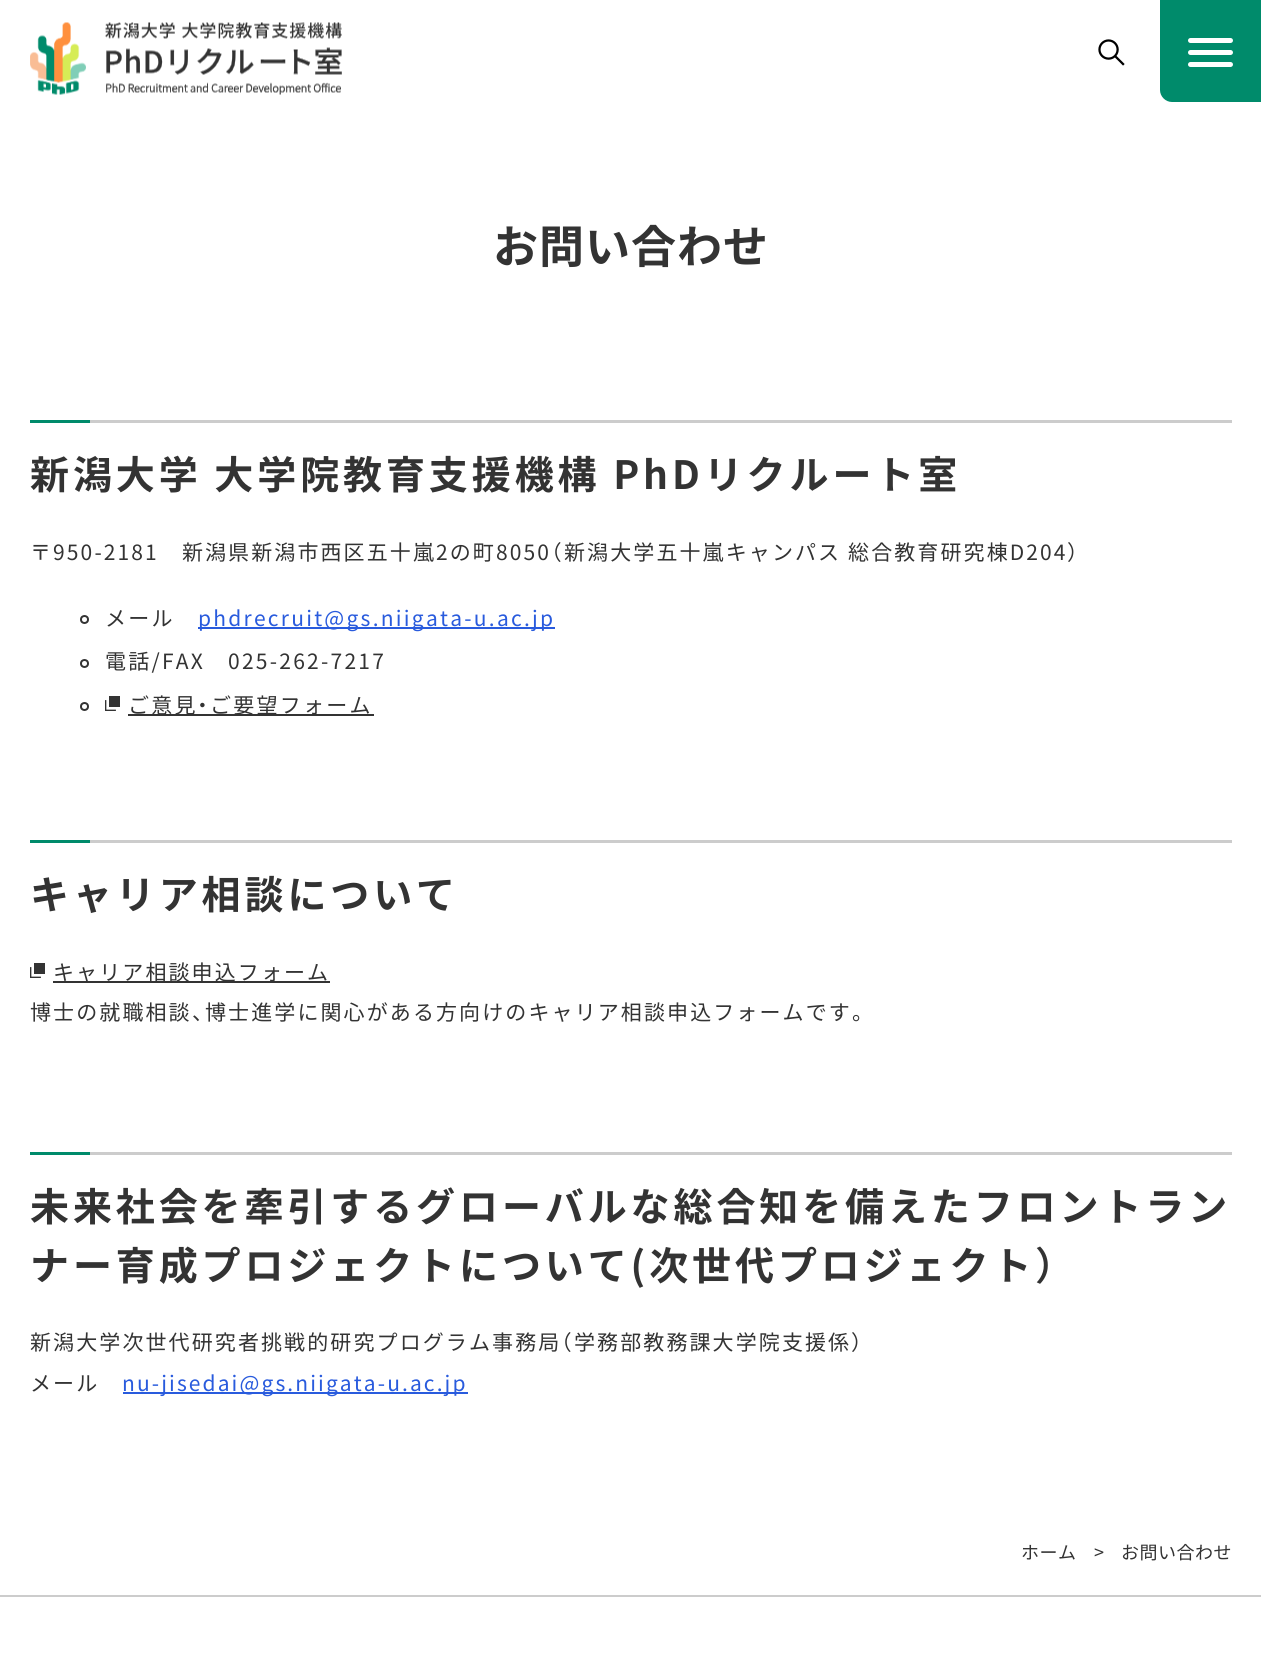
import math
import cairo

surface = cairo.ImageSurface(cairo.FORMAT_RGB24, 1261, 1666)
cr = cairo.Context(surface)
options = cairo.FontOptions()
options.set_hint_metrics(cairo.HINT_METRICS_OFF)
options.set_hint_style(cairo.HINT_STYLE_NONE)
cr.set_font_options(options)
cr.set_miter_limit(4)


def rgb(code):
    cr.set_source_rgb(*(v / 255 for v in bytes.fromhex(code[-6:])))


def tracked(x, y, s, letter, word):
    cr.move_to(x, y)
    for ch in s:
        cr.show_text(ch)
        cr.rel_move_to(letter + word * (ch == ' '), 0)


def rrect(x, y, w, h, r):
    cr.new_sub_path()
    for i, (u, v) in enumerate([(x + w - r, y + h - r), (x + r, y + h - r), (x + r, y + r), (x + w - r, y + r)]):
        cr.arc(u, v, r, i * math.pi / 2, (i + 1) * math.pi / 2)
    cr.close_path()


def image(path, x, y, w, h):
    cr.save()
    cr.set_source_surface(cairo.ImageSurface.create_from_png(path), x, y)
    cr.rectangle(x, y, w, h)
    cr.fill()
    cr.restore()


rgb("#ffffff")
cr.paint()
image("img/1.png", 30, 22, 312, 73)
image("img/2.png", 1098, 39, 27, 27)
rgb("#008b6b")
cr.new_path()
cr.move_to(1160, 0)
cr.line_to(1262, 0)
cr.line_to(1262, 102)
cr.line_to(1172, 102)
cr.curve_to(1165.5, 102, 1160, 96.5, 1160, 90)
cr.close_path()
cr.fill()
rgb("#ffffff")
rrect(1188, 50, 45, 5, 2.5)
cr.fill()
rrect(1188, 38, 45, 5, 2.5)
cr.fill()
rrect(1188, 62, 45, 5, 2.5)
cr.fill()
rgb("#008b6b")
cr.rectangle(30, 420, 60, 3)
cr.fill()
rgb("#cccccc")
cr.rectangle(90, 420, 1142, 3)
cr.fill()
cr.arc(84.5, 619.5, 3.5, 0, 2 * math.pi)
rgb("#333333")
cr.stroke()
rgb("#295bdd")
cr.rectangle(198, 627, 357, 2)
cr.fill()
cr.arc(84.5, 663.5, 3.5, 0, 2 * math.pi)
rgb("#333333")
cr.stroke()
cr.arc(84.5, 706.5, 3.5, 0, 2 * math.pi)
cr.stroke()
image("img/3.png", 105, 696, 15, 15)
for x, y, w, h, color in [
    (128, 714, 246, 2, "#333333"),
    (30, 840, 60, 3, "#008b6b"),
    (90, 840, 1142, 3, "#cccccc"),
]:
    rgb(color)
    cr.rectangle(x, y, w, h)
    cr.fill()
image("img/3.png", 30, 963, 15, 15)
for x, y, w, h, color in [
    (53, 981, 277, 2, "#333333"),
    (30, 1152, 60, 3, "#008b6b"),
    (90, 1152, 1142, 3, "#cccccc"),
    (123, 1392, 345, 2, "#295bdd"),
    (0, 1595, 1261, 2, "#cccccc"),
]:
    rgb(color)
    cr.rectangle(x, y, w, h)
    cr.fill()
cr.select_font_face("Noto Sans CJK JP", cairo.FONT_SLANT_NORMAL, cairo.FONT_WEIGHT_BOLD)
cr.set_font_size(45)
rgb("#333333")
tracked(493, 263, "お問い合わせ", 1, 0)
cr.set_font_size(39)
tracked(30, 489, "新潟大学 大学院教育支援機構 PhDリクルート室", 3.9, 0)
cr.select_font_face("Noto Sans CJK JP")
cr.set_font_size(21)
tracked(30, 560, "〒950-2181　新潟県新潟市西区五十嵐2の町8050", 2.1, 0)
cr.select_font_face("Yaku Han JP")
tracked(551, 560, "（", 2.1, 0)
cr.select_font_face("Noto Sans CJK JP")
tracked(564, 560, "新潟大学五十嵐キャンパス 総合教育研究棟D204", 2.1, 0)
cr.select_font_face("Yaku Han JP")
tracked(1067, 560, "）", 2.1, 0)
cr.select_font_face("Noto Sans CJK JP")
tracked(105, 626, "メール", 2.25, 0)
rgb("#295bdd")
tracked(198, 626, "phdrecruit@gs.niigata-u.ac.jp", 2.25, 0)
rgb("#333333")
for x, y, s in [
    (105, 669, "電話/FAX"),
    (228, 669, "025-262-7217"),
    (128, 713, "ご意見"),
]:
    tracked(x, y, s, 2.25, 0)
cr.select_font_face("Yaku Han JP")
tracked(197, 713, "・", 2.25, 0)
cr.select_font_face("Noto Sans CJK JP")
tracked(210, 713, "ご要望フォーム", 2.25, 0)
cr.select_font_face("Noto Sans CJK JP", cairo.FONT_SLANT_NORMAL, cairo.FONT_WEIGHT_BOLD)
cr.set_font_size(39)
tracked(30, 909, "キャリア相談について", 3.9, 0)
cr.select_font_face("Noto Sans CJK JP")
cr.set_font_size(21)
tracked(53, 980, "キャリア相談申込フォーム", 2.1, 0)
tracked(30, 1020, "博士の就職相談", 2.1, 0)
cr.select_font_face("Yaku Han JP")
tracked(192, 1020, "、", 2.1, 0)
cr.select_font_face("Noto Sans CJK JP")
tracked(205, 1020, "博士進学に関心がある方向けのキャリア相談申込フォームです", 2.1, 0)
cr.select_font_face("Yaku Han JP")
tracked(852, 1020, "。", 2.1, 0)
cr.select_font_face("Noto Sans CJK JP", cairo.FONT_SLANT_NORMAL, cairo.FONT_WEIGHT_BOLD)
cr.set_font_size(39)
tracked(30, 1221, "未来社会を牽引するグローバルな総合知を備えたフロントラン", 3.9, 0)
tracked(30, 1280, "ナー育成プロジェクトについて(次世代プロジェクト", 3.9, 0)
cr.select_font_face("Yaku Han JP SemiBold")
tracked(1035, 1280, "）", 3.9, 0)
cr.select_font_face("Noto Sans CJK JP")
cr.set_font_size(21)
tracked(30, 1350, "新潟大学次世代研究者挑戦的研究プログラム事務局", 2.1, 0)
cr.select_font_face("Yaku Han JP")
tracked(561, 1350, "（", 2.1, 0)
cr.select_font_face("Noto Sans CJK JP")
tracked(574, 1350, "学務部教務課大学院支援係", 2.1, 0)
cr.select_font_face("Yaku Han JP")
tracked(851, 1350, "）", 2.1, 0)
cr.select_font_face("Noto Sans CJK JP")
tracked(30, 1391, "メール", 2.1, 0)
rgb("#295bdd")
tracked(122, 1391, "nu-jisedai@gs.niigata-u.ac.jp", 2.1, 0)
cr.set_font_size(18)
rgb("#333333")
tracked(1021, 1559, "ホーム", 0.5, 0)
tracked(1094, 1559, ">", 2.25, 0)
tracked(1121, 1559, "お問い合わせ", 0.5, 0)
surface.write_to_png("page.png")
